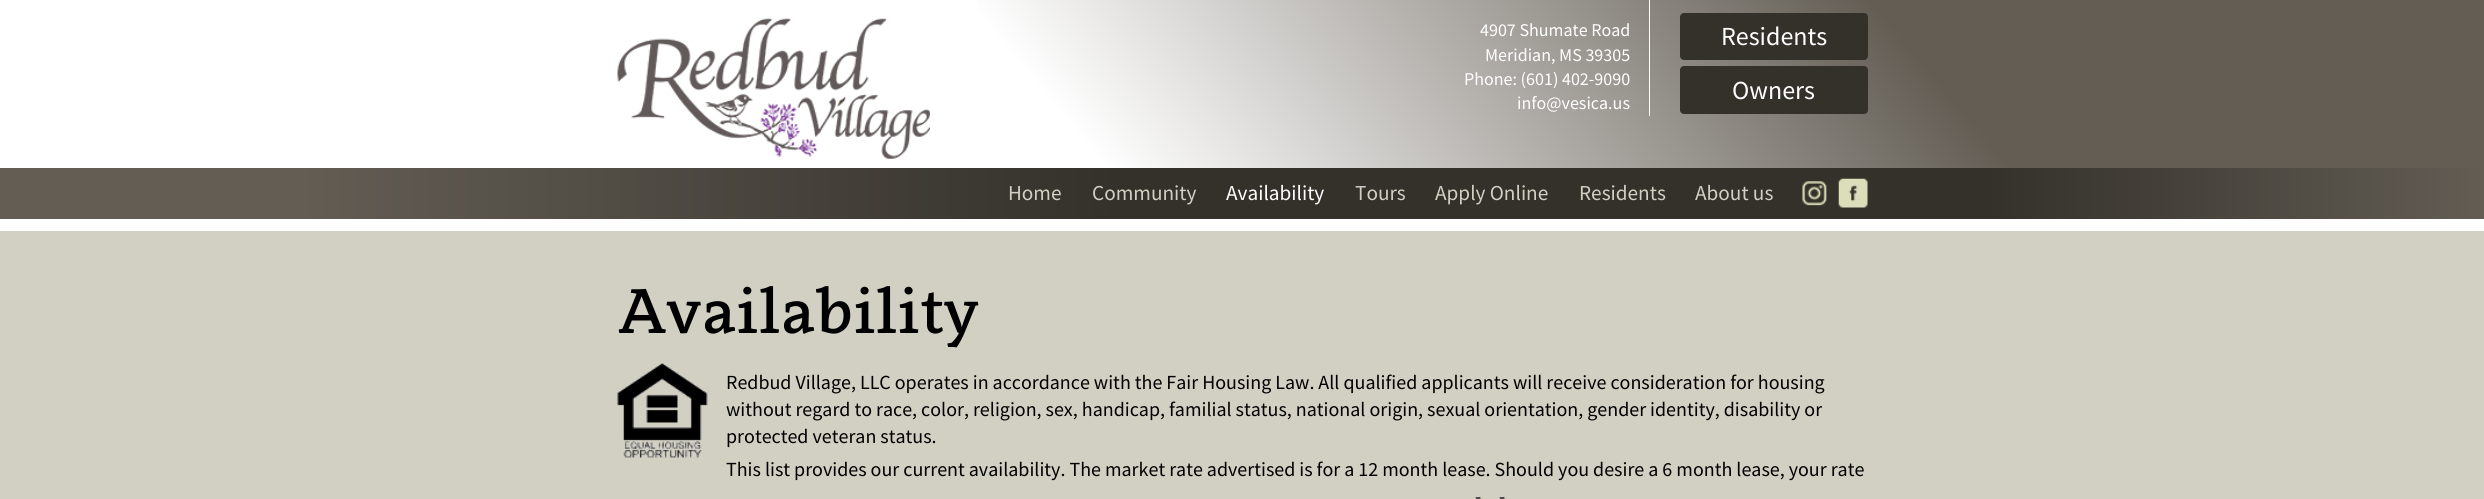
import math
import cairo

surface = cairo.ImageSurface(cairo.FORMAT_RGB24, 2484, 499)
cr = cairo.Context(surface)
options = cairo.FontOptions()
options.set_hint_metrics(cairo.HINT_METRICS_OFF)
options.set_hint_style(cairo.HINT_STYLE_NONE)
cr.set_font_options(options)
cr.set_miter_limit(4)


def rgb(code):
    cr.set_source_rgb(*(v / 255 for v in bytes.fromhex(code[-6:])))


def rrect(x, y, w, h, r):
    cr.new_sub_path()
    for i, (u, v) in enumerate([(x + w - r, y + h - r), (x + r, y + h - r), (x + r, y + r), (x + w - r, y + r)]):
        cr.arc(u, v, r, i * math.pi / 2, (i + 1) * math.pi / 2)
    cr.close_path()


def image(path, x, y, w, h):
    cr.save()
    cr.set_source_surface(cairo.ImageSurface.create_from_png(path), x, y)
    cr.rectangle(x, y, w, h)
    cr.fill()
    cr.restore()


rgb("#ffffff")
cr.paint()
gradient = cairo.LinearGradient(460, 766, 2025, -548)
gradient.add_color_stop_rgba(0, 1, 1, 1, 1)
gradient.add_color_stop_rgba(0.43, 1, 1, 1, 1)
gradient.add_color_stop_rgba(0.77, 0.388, 0.365, 0.329, 1)
cr.set_source(gradient)
cr.rectangle(978, 0, 1506, 168)
cr.fill()
image("img/1.png", 617, 18, 313, 141)
rgb("#ffffff")
cr.rectangle(1649, 0, 1, 116)
cr.fill()
rgb("#34312b")
rrect(1680, 13, 188, 47, 4)
cr.fill()
rrect(1680, 66, 188, 48, 4)
cr.fill()
gradient = cairo.LinearGradient(0, 193, 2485, 193)
gradient.add_color_stop_rgba(0.12, 0.388, 0.365, 0.329, 1)
gradient.add_color_stop_rgba(0.45, 0.204, 0.192, 0.169, 1)
gradient.add_color_stop_rgba(0.8, 0.204, 0.192, 0.169, 1)
gradient.add_color_stop_rgba(1, 0.388, 0.365, 0.329, 1)
cr.set_source(gradient)
cr.rectangle(0, 168, 2484, 51)
cr.fill()
image("img/2.png", 1802, 181, 25, 25)
image("img/3.png", 1838, 178, 30, 30)
rgb("#d2d0c3")
cr.rectangle(0, 231, 2484, 268)
cr.fill()
image("img/4.png", 617, 363, 91, 95)
cr.select_font_face("Source Sans Pro")
cr.set_font_size(18)
rgb("#ffffff")
for x, y, s in [
    (1480, 36, "4907 Shumate Road"),
    (1485, 61, "Meridian, MS 39305"),
    (1464, 85, "Phone: (601) 402-9090"),
    (1517, 109, "info@vesica.us"),
]:
    cr.move_to(x, y)
    cr.show_text(s)
cr.set_font_size(26)
cr.move_to(1721, 45)
cr.show_text("Residents")
cr.move_to(1732, 99)
cr.show_text("Owners")
cr.set_font_size(21.25)
rgb("#d2d0c3")
cr.move_to(1008, 200)
cr.show_text("Home")
cr.move_to(1092, 200)
cr.show_text("Community")
rgb("#ffffff")
cr.move_to(1226, 200)
cr.show_text("Availability")
rgb("#d2d0c3")
for x, y, s in [
    (1355, 200, "Tours"),
    (1435, 200, "Apply Online"),
    (1579, 200, "Residents"),
    (1695, 200, "About us"),
]:
    cr.move_to(x, y)
    cr.show_text(s)
cr.select_font_face("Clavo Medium")
cr.set_font_size(62.5)
rgb("#000000")
cr.move_to(618, 333)
cr.show_text("Availability")
cr.select_font_face("Source Sans Pro")
cr.set_font_size(20)
for x, y, s in [
    (726, 389, "Redbud Village, LLC operates in accordance with the Fair Housing Law. All qualified applicants will receive consideration for housing"),
    (726, 416, "without regard to race, color, religion, sex, handicap, familial status, national origin, sexual orientation, gender identity, disability or"),
    (726, 443, "protected veteran status."),
    (726, 476, "This list provides our current availability. The market rate advertised is for a 12 month lease. Should you desire a 6 month lease, your rate"),
    (1475, 503, "-"),
    (1499, 503, "-"),
]:
    cr.move_to(x, y)
    cr.show_text(s)
surface.write_to_png("page.png")
